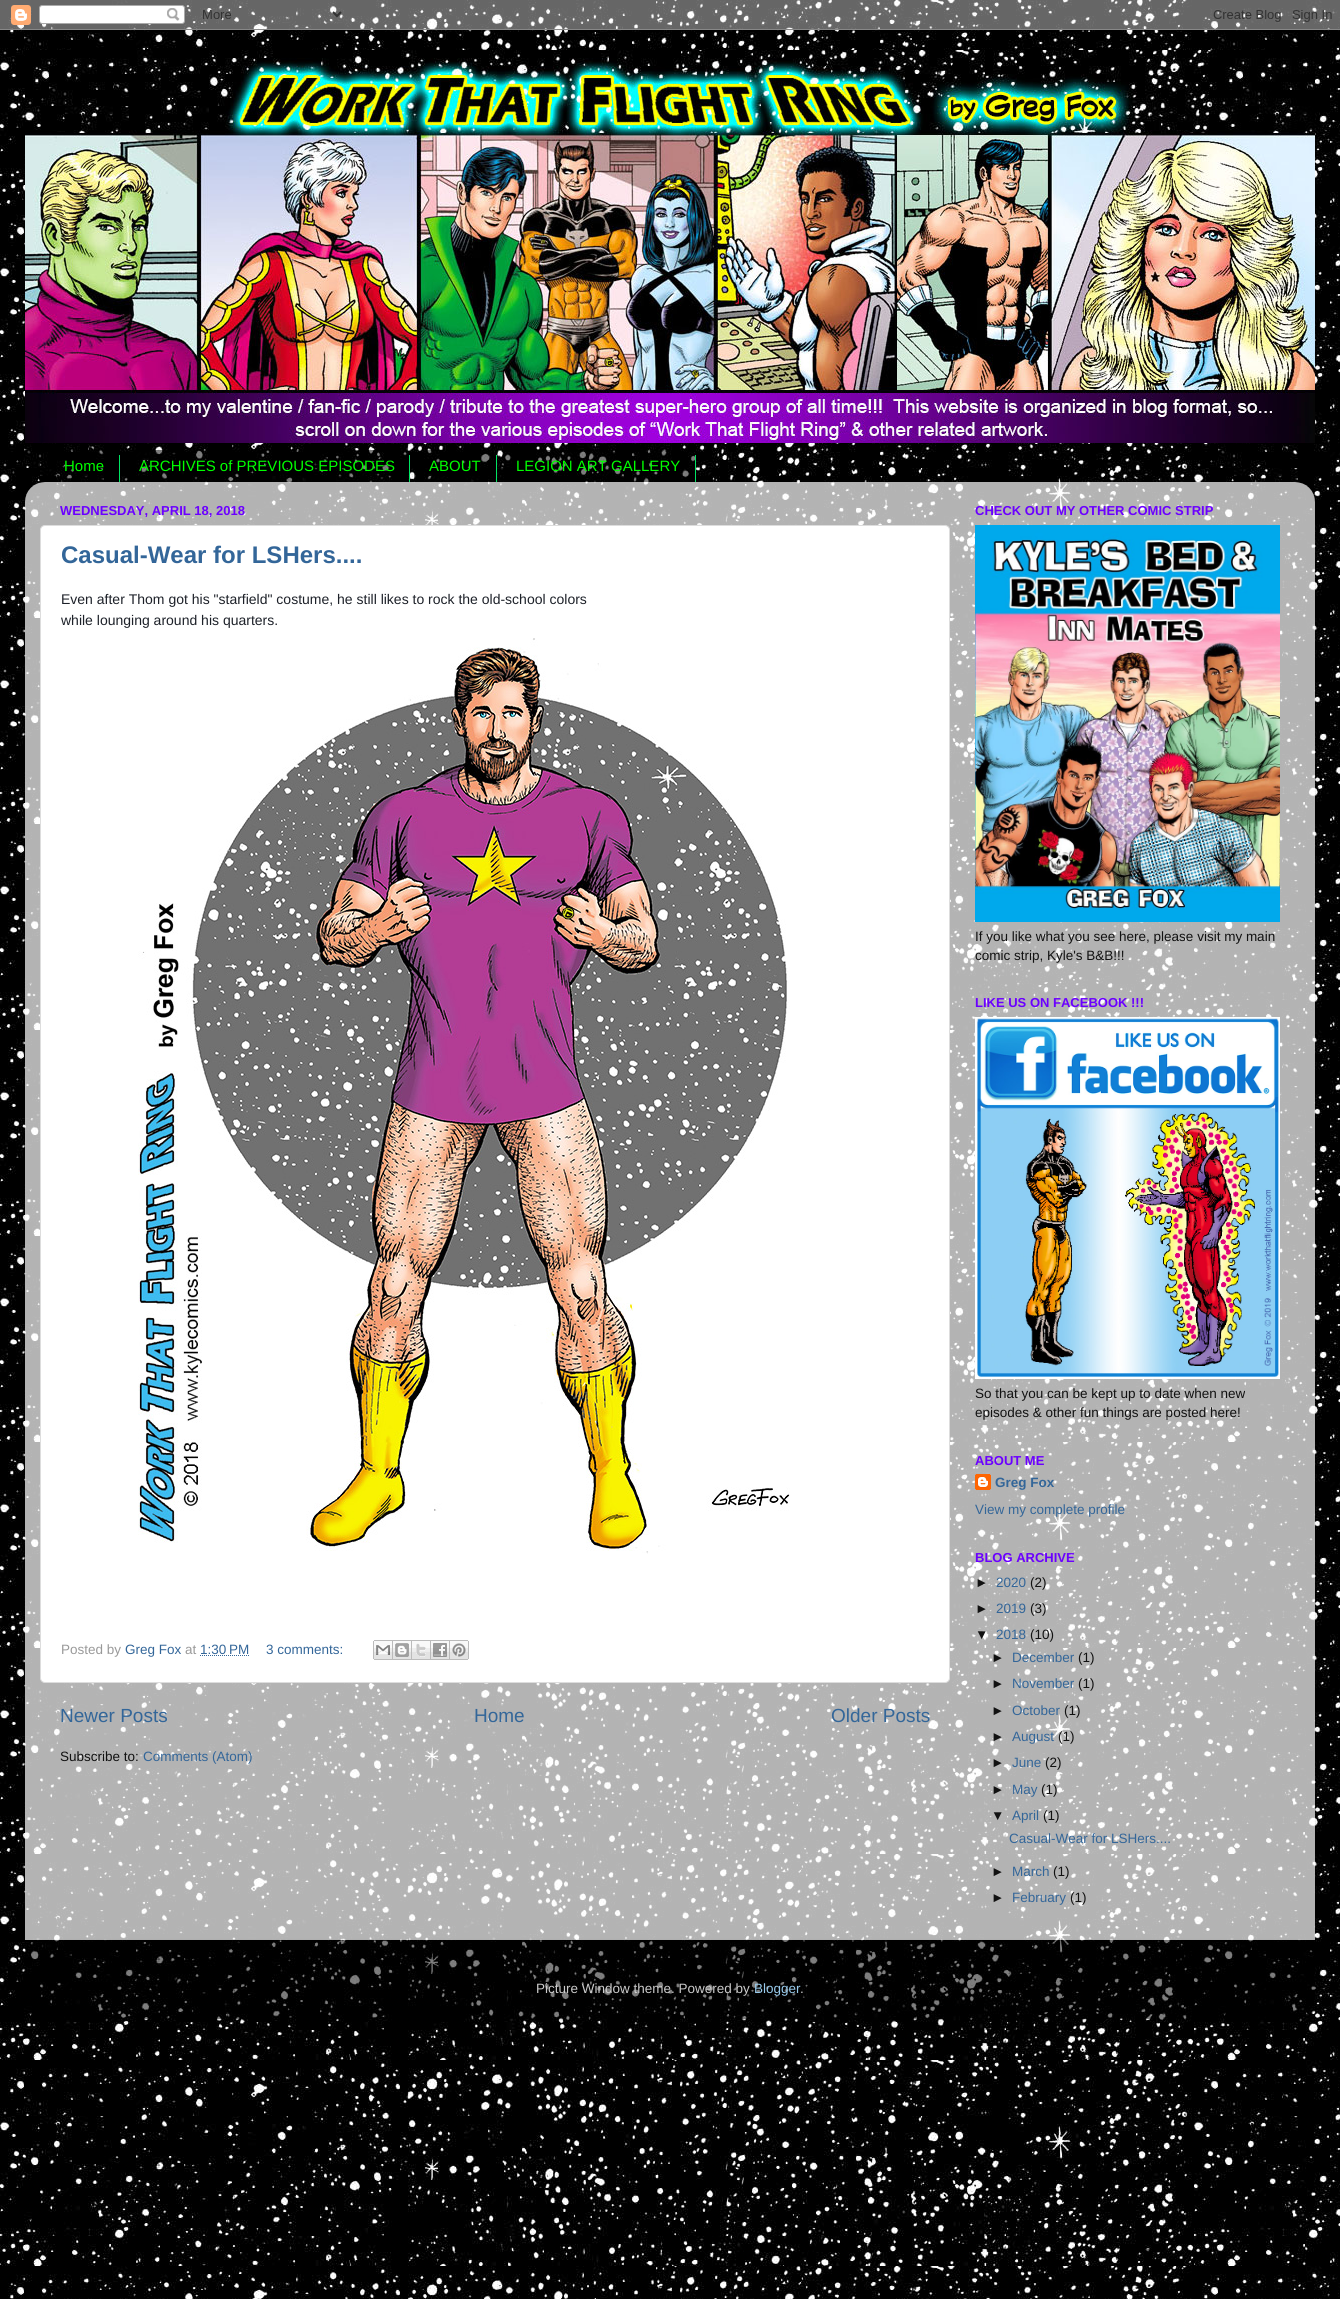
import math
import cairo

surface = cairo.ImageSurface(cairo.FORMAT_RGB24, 1340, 2299)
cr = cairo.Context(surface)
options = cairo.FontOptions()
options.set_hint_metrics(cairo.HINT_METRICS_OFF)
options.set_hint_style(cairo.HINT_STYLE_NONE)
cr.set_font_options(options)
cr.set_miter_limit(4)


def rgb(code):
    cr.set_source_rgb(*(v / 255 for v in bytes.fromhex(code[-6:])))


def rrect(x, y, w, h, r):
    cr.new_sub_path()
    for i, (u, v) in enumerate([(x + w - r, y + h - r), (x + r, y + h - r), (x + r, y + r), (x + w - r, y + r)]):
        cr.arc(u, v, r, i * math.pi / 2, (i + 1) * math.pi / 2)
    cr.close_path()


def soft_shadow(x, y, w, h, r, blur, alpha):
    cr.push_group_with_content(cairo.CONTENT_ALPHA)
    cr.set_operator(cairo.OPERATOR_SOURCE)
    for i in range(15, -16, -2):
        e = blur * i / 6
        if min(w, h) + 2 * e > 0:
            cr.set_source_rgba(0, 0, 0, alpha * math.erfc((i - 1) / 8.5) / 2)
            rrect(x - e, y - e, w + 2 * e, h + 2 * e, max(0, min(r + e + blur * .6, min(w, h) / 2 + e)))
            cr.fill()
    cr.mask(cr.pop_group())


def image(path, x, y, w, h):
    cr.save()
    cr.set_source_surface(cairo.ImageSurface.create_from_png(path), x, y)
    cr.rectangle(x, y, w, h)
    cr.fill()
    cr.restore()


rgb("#ffffff")
cr.paint()
image("img/1.png", 0, 0, 1340, 2299)
image("img/2.png", 0, 0, 1340, 30)
image("img/3.png", 25, 50, 1290, 393)
image("img/4.png", 45, 450, 59, 32)
rgb("#00e563")
cr.rectangle(119, 455, 1, 27)
cr.fill()
image("img/5.png", 124, 450, 285, 32)
cr.rectangle(409, 455, 1, 27)
cr.fill()
image("img/6.png", 414, 450, 82, 32)
cr.rectangle(496, 455, 1, 27)
cr.fill()
image("img/7.png", 501, 450, 194, 32)
cr.rectangle(695, 455, 1, 27)
cr.fill()
cr.save()
cr.set_fill_rule(cairo.FILL_RULE_EVEN_ODD)
cr.new_path()
cr.move_to(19, 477)
cr.line_to(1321, 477)
cr.line_to(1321, 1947)
cr.line_to(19, 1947)
cr.close_path()
cr.move_to(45, 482)
cr.line_to(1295, 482)
cr.curve_to(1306, 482, 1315, 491, 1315, 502)
cr.line_to(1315, 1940)
cr.line_to(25, 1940)
cr.line_to(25, 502)
cr.curve_to(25, 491, 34, 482, 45, 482)
cr.close_path()
cr.clip()
rgb("#000000")
soft_shadow(25, 483, 1290, 1458, 20, 1.5, 0.15)
cr.restore()
image("img/8.png", 25, 482, 1290, 1458)
rgb("#ffffff")
rrect(40.5, 525.5, 909, 1157, 4.5)
cr.fill_preserve()
rgb("#dddddd")
cr.set_line_width(1)
cr.stroke()
image("img/9.png", 138, 638, 652, 916)
cr.new_path()
cr.move_to(200, 1655.5)
cr.line_to(249, 1655.5)
rgb("#336699")
cr.set_dash([1, 1])
cr.stroke()
image("img/10.png", 373, 1640, 20, 20)
image("img/11.png", 393, 1640, 19, 20)
image("img/12.png", 412, 1640, 19, 20)
image("img/13.png", 431, 1640, 19, 20)
image("img/14.png", 450, 1640, 19, 20)
image("img/15.png", 975, 525, 305, 397)
image("img/16.png", 975, 1017, 305, 362)
image("img/17.png", 975, 1474, 16, 16)
cr.save()
cr.set_fill_rule(cairo.FILL_RULE_EVEN_ODD)
cr.new_path()
cr.move_to(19, 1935)
cr.line_to(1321, 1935)
cr.line_to(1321, 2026)
cr.line_to(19, 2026)
cr.close_path()
cr.move_to(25, 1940)
cr.line_to(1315, 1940)
cr.line_to(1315, 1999)
cr.curve_to(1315, 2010, 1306, 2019, 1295, 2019)
cr.line_to(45, 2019)
cr.curve_to(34, 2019, 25, 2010, 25, 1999)
cr.close_path()
cr.clip()
rgb("#000000")
soft_shadow(25, 1941, 1290, 79, 20, 1.5, 0.15)
cr.restore()
image("img/18.png", 25, 1940, 1290, 79)
cr.select_font_face("Liberation Sans")
cr.set_font_size(15)
rgb("#00ff00")
for x, y, s in [
    (64, 471, "Home"),
    (139, 471, "ARCHIVES of PREVIOUS EPISODES"),
    (429, 471, "ABOUT"),
    (516, 471, "LEGION ART GALLERY"),
]:
    cr.move_to(x, y)
    cr.show_text(s)
cr.select_font_face("Liberation Sans", cairo.FONT_SLANT_NORMAL, cairo.FONT_WEIGHT_BOLD)
cr.set_font_size(13)
rgb("#6b00ff")
cr.move_to(60, 515)
cr.show_text("WEDNESDAY, APRIL 18, 2018")
cr.set_font_size(24)
rgb("#336699")
cr.move_to(61, 563)
cr.show_text("Casual-Wear for LSHers....")
cr.select_font_face("Liberation Sans")
cr.set_font_size(14)
rgb("#1d2129")
cr.move_to(61, 604)
cr.show_text("Even after Thom got his \"starfield\" costume, he still likes to rock the old-school colors")
cr.move_to(61, 625)
cr.show_text("while lounging around his quarters.")
cr.set_font_size(13.5)
rgb("#999999")
cr.move_to(61, 1654)
cr.show_text("Posted by")
rgb("#336699")
cr.move_to(125, 1654)
cr.show_text("Greg Fox")
rgb("#999999")
cr.move_to(185, 1654)
cr.show_text("at")
rgb("#336699")
cr.move_to(200, 1654)
cr.show_text("1:30 PM")
cr.move_to(266, 1654)
cr.show_text("3 comments:")
cr.set_font_size(19)
for x, y, s in [
    (60, 1722, "Newer Posts"),
    (474, 1722, "Home"),
    (831, 1722, "Older Posts"),
]:
    cr.move_to(x, y)
    cr.show_text(s)
cr.set_font_size(13.5)
rgb("#111111")
cr.move_to(60, 1761)
cr.show_text("Subscribe to:")
rgb("#336699")
cr.move_to(143, 1761)
cr.show_text("Comments (Atom)")
cr.select_font_face("Liberation Sans", cairo.FONT_SLANT_NORMAL, cairo.FONT_WEIGHT_BOLD)
cr.set_font_size(13)
rgb("#6b00ff")
cr.move_to(975, 515)
cr.show_text("CHECK OUT MY OTHER COMIC STRIP")
cr.select_font_face("Liberation Sans")
cr.set_font_size(13.5)
rgb("#111111")
cr.move_to(975, 941)
cr.show_text("If you like what you see here, please visit my main")
cr.move_to(975, 960)
cr.show_text("comic strip, Kyle's B&B!!!")
cr.select_font_face("Liberation Sans", cairo.FONT_SLANT_NORMAL, cairo.FONT_WEIGHT_BOLD)
cr.set_font_size(13)
rgb("#6b00ff")
cr.move_to(975, 1007)
cr.show_text("LIKE US ON FACEBOOK !!!")
cr.select_font_face("Liberation Sans")
cr.set_font_size(13.5)
rgb("#111111")
cr.move_to(975, 1398)
cr.show_text("So that you can be kept up to date when new")
cr.move_to(975, 1417)
cr.show_text("episodes & other fun things are posted here!")
cr.select_font_face("Liberation Sans", cairo.FONT_SLANT_NORMAL, cairo.FONT_WEIGHT_BOLD)
cr.set_font_size(13)
rgb("#6b00ff")
cr.move_to(975, 1465)
cr.show_text("ABOUT ME")
cr.set_font_size(13.5)
rgb("#336699")
cr.move_to(995, 1487)
cr.show_text("Greg Fox")
cr.select_font_face("Liberation Sans")
cr.move_to(975, 1514)
cr.show_text("View my complete profile")
cr.select_font_face("Liberation Sans", cairo.FONT_SLANT_NORMAL, cairo.FONT_WEIGHT_BOLD)
cr.set_font_size(13)
rgb("#6b00ff")
cr.move_to(975, 1562)
cr.show_text("BLOG ARCHIVE")
cr.select_font_face("Liberation Sans")
cr.set_font_size(13.5)
rgb("#111111")
cr.move_to(975, 1587)
cr.show_text("►")
rgb("#336699")
cr.move_to(996, 1587)
cr.show_text("2020")
rgb("#111111")
cr.move_to(1030, 1587)
cr.show_text("(2)")
cr.move_to(975, 1613)
cr.show_text("►")
rgb("#336699")
cr.move_to(996, 1613)
cr.show_text("2019")
rgb("#111111")
cr.move_to(1030, 1613)
cr.show_text("(3)")
cr.move_to(975, 1639)
cr.show_text("▼")
rgb("#336699")
cr.move_to(996, 1639)
cr.show_text("2018")
rgb("#111111")
cr.move_to(1030, 1639)
cr.show_text("(10)")
cr.move_to(991, 1662)
cr.show_text("►")
rgb("#336699")
cr.move_to(1012, 1662)
cr.show_text("December")
rgb("#111111")
cr.move_to(1078, 1662)
cr.show_text("(1)")
cr.move_to(991, 1688)
cr.show_text("►")
rgb("#336699")
cr.move_to(1012, 1688)
cr.show_text("November")
rgb("#111111")
cr.move_to(1078, 1688)
cr.show_text("(1)")
cr.move_to(991, 1715)
cr.show_text("►")
rgb("#336699")
cr.move_to(1012, 1715)
cr.show_text("October")
rgb("#111111")
cr.move_to(1064, 1715)
cr.show_text("(1)")
cr.move_to(991, 1741)
cr.show_text("►")
rgb("#336699")
cr.move_to(1012, 1741)
cr.show_text("August")
rgb("#111111")
cr.move_to(1058, 1741)
cr.show_text("(1)")
cr.move_to(991, 1767)
cr.show_text("►")
rgb("#336699")
cr.move_to(1012, 1767)
cr.show_text("June")
rgb("#111111")
cr.move_to(1045, 1767)
cr.show_text("(2)")
cr.move_to(991, 1794)
cr.show_text("►")
rgb("#336699")
cr.move_to(1012, 1794)
cr.show_text("May")
rgb("#111111")
cr.move_to(1041, 1794)
cr.show_text("(1)")
cr.move_to(991, 1820)
cr.show_text("▼")
rgb("#336699")
cr.move_to(1012, 1820)
cr.show_text("April")
rgb("#111111")
cr.move_to(1043, 1820)
cr.show_text("(1)")
rgb("#336699")
cr.move_to(1009, 1843)
cr.show_text("Casual-Wear for LSHers....")
rgb("#111111")
cr.move_to(991, 1876)
cr.show_text("►")
rgb("#336699")
cr.move_to(1012, 1876)
cr.show_text("March")
rgb("#111111")
cr.move_to(1053, 1876)
cr.show_text("(1)")
cr.move_to(991, 1902)
cr.show_text("►")
rgb("#336699")
cr.move_to(1012, 1902)
cr.show_text("February")
rgb("#111111")
cr.move_to(1070, 1902)
cr.show_text("(1)")
rgb("#cccccc")
cr.move_to(536, 1993)
cr.show_text("Picture Window theme. Powered by")
rgb("#99ccee")
cr.move_to(754, 1993)
cr.show_text("Blogger")
rgb("#cccccc")
cr.move_to(800, 1993)
cr.show_text(".")
surface.write_to_png("page.png")
